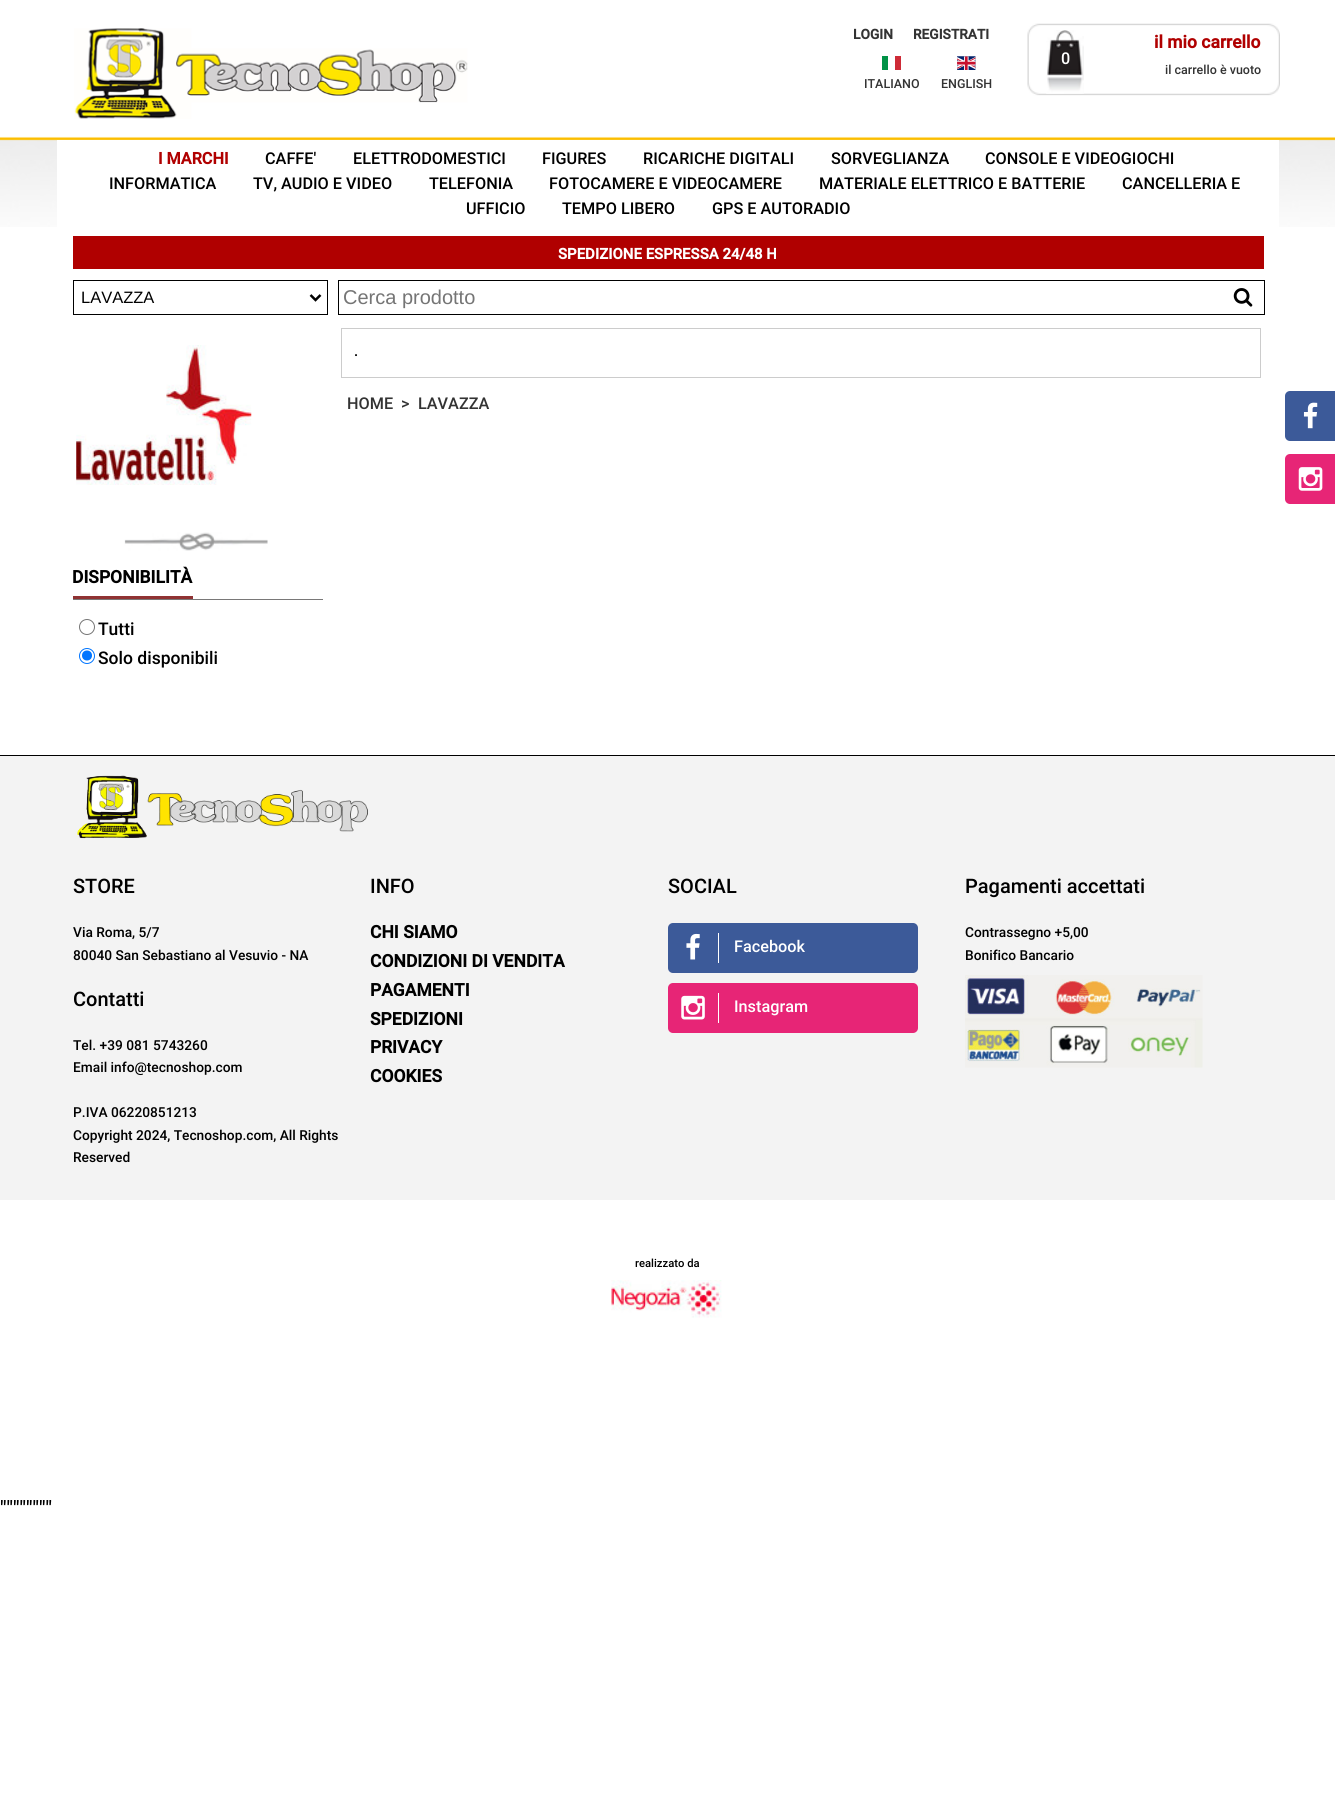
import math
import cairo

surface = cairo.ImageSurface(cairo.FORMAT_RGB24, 1335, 1800)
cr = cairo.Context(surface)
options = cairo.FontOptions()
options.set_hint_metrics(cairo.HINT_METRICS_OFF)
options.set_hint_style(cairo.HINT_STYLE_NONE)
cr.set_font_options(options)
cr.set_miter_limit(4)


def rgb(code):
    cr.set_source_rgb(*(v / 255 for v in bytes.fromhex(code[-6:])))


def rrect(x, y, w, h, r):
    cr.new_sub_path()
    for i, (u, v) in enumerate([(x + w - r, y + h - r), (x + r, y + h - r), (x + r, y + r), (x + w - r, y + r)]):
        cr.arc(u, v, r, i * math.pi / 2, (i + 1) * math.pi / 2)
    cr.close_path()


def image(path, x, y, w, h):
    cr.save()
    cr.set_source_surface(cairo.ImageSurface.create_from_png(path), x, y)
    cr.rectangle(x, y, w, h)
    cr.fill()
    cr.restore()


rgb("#ffffff")
cr.paint()
image("img/1.png", 0, 136, 1335, 91)
rgb("#ffffff")
cr.rectangle(57, 140, 1222, 87)
cr.fill()
image("img/2.png", 74, 28, 394, 91)
rgb("#009246")
cr.rectangle(882, 56, 6, 14)
cr.fill()
rgb("#ce2b37")
cr.rectangle(895, 56, 6, 14)
cr.fill()
image("img/3.png", 957, 56, 19, 14)
image("img/4.png", 1027, 23, 253, 73)
image("img/5.png", 1046, 30, 38, 64)
rgb("#3c5a99")
rrect(1285, 391, 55, 50, 5)
cr.fill()
image("img/6.png", 1303, 402, 15, 27)
rgb("#e72576")
rrect(1285, 454, 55, 50, 5)
cr.fill()
image("img/7.png", 1298, 467, 25, 24)
rgb("#b00000")
cr.rectangle(73, 236, 1191, 33)
cr.fill()
cr.rectangle(73.5, 280.5, 254, 34)
rgb("#000000")
cr.set_line_width(1)
cr.stroke()
cr.new_path()
cr.move_to(310.5, 295)
cr.line_to(315.5, 300)
cr.line_to(320.5, 295)
cr.set_line_width(2.5)
cr.stroke()
cr.rectangle(338.5, 280.5, 926, 34)
cr.set_line_width(1)
cr.stroke()
image("img/8.png", 1233, 288, 20, 19)
cr.rectangle(341.5, 328.5, 919, 49)
rgb("#cccccc")
cr.stroke()
image("img/9.png", 76, 345, 176, 140)
image("img/10.png", 124, 532, 144, 19)
rgb("#797878")
cr.rectangle(73, 599, 250, 1)
cr.fill()
rgb("#903233")
cr.rectangle(73, 596, 120, 3)
cr.fill()
cr.arc(87, 627, 7.5, 0, 2 * math.pi)
rgb("#767676")
cr.stroke()
cr.arc(87, 656, 7.5, 0, 2 * math.pi)
rgb("#0075ff")
cr.stroke()
cr.arc(87, 655.5, 5, 0, 2 * math.pi)
cr.fill()
rgb("#f3f3f3")
cr.rectangle(0, 756, 1335, 444)
cr.fill()
rgb("#000000")
cr.rectangle(0, 755, 1335, 1)
cr.fill()
image("img/11.png", 77, 775, 291, 64)
rgb("#3c5a99")
rrect(668, 923, 250, 50, 5)
cr.fill()
rgb("#ffffff")
cr.rectangle(718, 933, 1, 30)
cr.fill()
image("img/12.png", 686, 933, 14, 27)
rgb("#e72576")
rrect(668, 983, 250, 50, 5)
cr.fill()
rgb("#ffffff")
cr.rectangle(718, 993, 1, 30)
cr.fill()
image("img/13.png", 681, 995, 24, 25)
image("img/14.png", 965, 975, 238, 93)
image("img/15.png", 611, 1280, 111, 38)
cr.select_font_face("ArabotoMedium", cairo.FONT_SLANT_NORMAL, cairo.FONT_WEIGHT_BOLD)
cr.set_font_size(13.75)
rgb("#333333")
cr.move_to(853, 39)
cr.show_text("LOGIN")
cr.move_to(913, 39)
cr.show_text("REGISTRATI")
cr.select_font_face("ArabotoMedium Medium")
cr.set_font_size(12.5)
cr.move_to(864, 88)
cr.show_text("ITALIANO")
cr.move_to(941, 88)
cr.show_text("ENGLISH")
cr.select_font_face("ArabotoMedium", cairo.FONT_SLANT_NORMAL, cairo.FONT_WEIGHT_BOLD)
cr.set_font_size(17.5)
rgb("#b00000")
cr.move_to(1154, 48)
cr.show_text("il mio carrello")
cr.select_font_face("ArabotoMedium Medium")
cr.set_font_size(16.25)
rgb("#ffffff")
cr.move_to(1061, 64)
cr.show_text("0")
cr.set_font_size(12.5)
rgb("#333333")
cr.move_to(1165, 74)
cr.show_text("il carrello è vuoto")
cr.select_font_face("ArabotoMedium", cairo.FONT_SLANT_NORMAL, cairo.FONT_WEIGHT_BOLD)
cr.set_font_size(16.25)
rgb("#b00000")
cr.move_to(158, 164)
cr.show_text("I MARCHI")
cr.select_font_face("ArabotoMedium Medium")
rgb("#000000")
for x, y, s in [
    (265, 164, "CAFFE'"),
    (353, 164, "ELETTRODOMESTICI"),
    (542, 164, "FIGURES"),
    (643, 164, "RICARICHE DIGITALI"),
    (831, 164, "SORVEGLIANZA"),
    (985, 164, "CONSOLE E VIDEOGIOCHI"),
    (109, 189, "INFORMATICA"),
    (253, 189, "TV, AUDIO E VIDEO"),
    (429, 189, "TELEFONIA"),
    (549, 189, "FOTOCAMERE E VIDEOCAMERE"),
    (819, 189, "MATERIALE ELETTRICO E BATTERIE"),
    (1122, 189, "CANCELLERIA E"),
    (466, 214, "UFFICIO"),
    (562, 214, "TEMPO LIBERO"),
    (712, 214, "GPS E AUTORADIO"),
]:
    cr.move_to(x, y)
    cr.show_text(s)
cr.select_font_face("ArabotoMedium", cairo.FONT_SLANT_NORMAL, cairo.FONT_WEIGHT_BOLD)
cr.set_font_size(15)
rgb("#ffffff")
cr.move_to(558, 259)
cr.show_text("SPEDIZIONE ESPRESSA 24/48 H")
cr.select_font_face("Liberation Sans")
cr.set_font_size(16.5)
rgb("#000000")
cr.move_to(81, 303)
cr.show_text("LAVAZZA")
cr.set_font_size(20)
rgb("#757575")
cr.move_to(343, 304)
cr.show_text("Cerca prodotto")
cr.select_font_face("ArabotoMedium Medium")
cr.set_font_size(15)
rgb("#000000")
cr.move_to(354, 356)
cr.show_text(".")
cr.set_font_size(16.25)
rgb("#333333")
for x, y, s in [
    (347, 409, "HOME"),
    (401, 409, ">"),
    (418, 409, "LAVAZZA"),
]:
    cr.move_to(x, y)
    cr.show_text(s)
cr.select_font_face("ArabotoMedium", cairo.FONT_SLANT_NORMAL, cairo.FONT_WEIGHT_BOLD)
cr.set_font_size(17.5)
rgb("#000000")
cr.move_to(72, 583)
cr.show_text("DISPONIBILITÀ")
cr.select_font_face("ArabotoMedium Medium")
cr.move_to(98, 635)
cr.show_text("Tutti")
cr.move_to(98, 664)
cr.show_text("Solo disponibili")
cr.set_font_size(20)
cr.move_to(73, 893)
cr.show_text("STORE")
cr.set_font_size(13.75)
cr.move_to(73, 937)
cr.show_text("Via Roma, 5/7")
cr.move_to(73, 960)
cr.show_text("80040 San Sebastiano al Vesuvio - NA")
cr.set_font_size(20)
cr.move_to(73, 1006)
cr.show_text("Contatti")
cr.set_font_size(13.75)
for x, y, s in [
    (73, 1050, "Tel. +39 081 5743260"),
    (73, 1072, "Email info@tecnoshop.com"),
    (73, 1117, "P.IVA 06220851213"),
    (73, 1140, "Copyright 2024, Tecnoshop.com, All Rights"),
    (73, 1162, "Reserved"),
]:
    cr.move_to(x, y)
    cr.show_text(s)
cr.set_font_size(20)
cr.move_to(370, 893)
cr.show_text("INFO")
cr.select_font_face("ArabotoMedium", cairo.FONT_SLANT_NORMAL, cairo.FONT_WEIGHT_BOLD)
cr.set_font_size(17.5)
for x, y, s in [
    (370, 938, "CHI SIAMO"),
    (370, 967, "CONDIZIONI DI VENDITA"),
    (370, 996, "PAGAMENTI"),
    (370, 1025, "SPEDIZIONI"),
    (370, 1053, "PRIVACY"),
    (370, 1082, "COOKIES"),
]:
    cr.move_to(x, y)
    cr.show_text(s)
cr.select_font_face("ArabotoMedium Medium")
cr.set_font_size(20)
cr.move_to(668, 893)
cr.show_text("SOCIAL")
cr.set_font_size(16.25)
rgb("#ffffff")
cr.move_to(734, 952)
cr.show_text("Facebook")
cr.move_to(734, 1012)
cr.show_text("Instagram")
cr.set_font_size(20)
rgb("#000000")
cr.move_to(965, 893)
cr.show_text("Pagamenti accettati")
cr.set_font_size(13.75)
cr.move_to(965, 937)
cr.show_text("Contrassegno +5,00")
cr.move_to(965, 960)
cr.show_text("Bonifico Bancario")
cr.set_font_size(11.25)
cr.move_to(635, 1267)
cr.show_text("realizzato da")
cr.set_font_size(20)
cr.move_to(0, 1515)
cr.show_text("\"\"\"\"\"\"\"\"")
surface.write_to_png("page.png")
